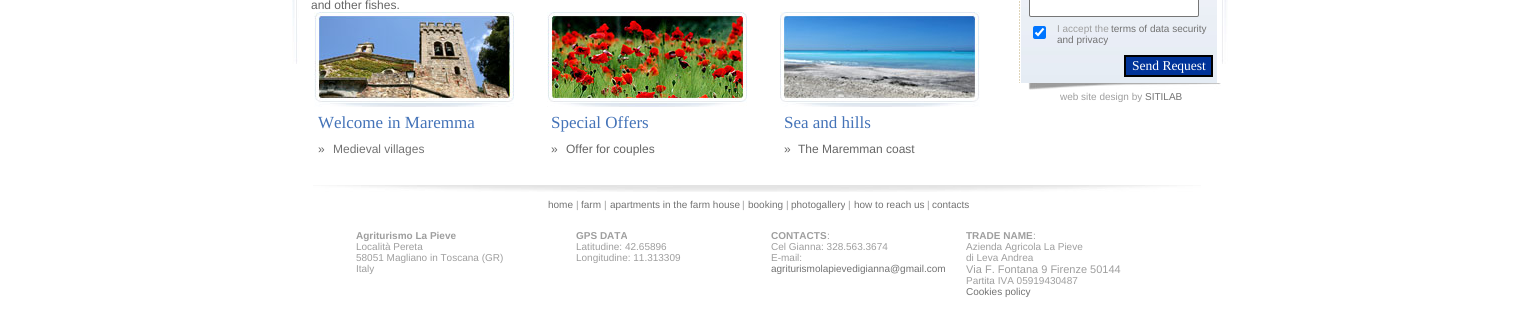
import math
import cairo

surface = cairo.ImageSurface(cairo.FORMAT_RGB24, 1518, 311)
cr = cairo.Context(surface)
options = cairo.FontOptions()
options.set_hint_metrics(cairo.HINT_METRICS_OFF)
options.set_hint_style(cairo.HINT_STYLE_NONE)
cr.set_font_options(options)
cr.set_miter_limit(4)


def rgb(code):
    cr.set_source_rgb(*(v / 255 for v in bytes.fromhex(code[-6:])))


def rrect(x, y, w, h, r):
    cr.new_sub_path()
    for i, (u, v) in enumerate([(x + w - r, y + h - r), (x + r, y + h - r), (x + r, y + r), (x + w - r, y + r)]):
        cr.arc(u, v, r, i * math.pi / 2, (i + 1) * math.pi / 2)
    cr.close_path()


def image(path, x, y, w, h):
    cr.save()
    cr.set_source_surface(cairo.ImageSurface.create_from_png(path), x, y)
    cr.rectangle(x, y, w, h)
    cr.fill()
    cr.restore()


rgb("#ffffff")
cr.paint()
image("img/1.png", 292, 0, 936, 64)
image("img/2.png", 314, 12, 200, 95)
image("img/3.png", 547, 12, 200, 95)
image("img/4.png", 780, 12, 200, 95)
image("img/5.png", 1019, 1, 1, 82)
image("img/6.png", 1021, 0, 196, 83)
rgb("#ffffff")
rrect(1029.5, -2.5, 169, 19, 1.5)
cr.fill_preserve()
rgb("#767676")
cr.set_line_width(1)
cr.stroke()
rgb("#0075ff")
rrect(1033, 26, 13, 13, 2)
cr.fill()
cr.new_path()
cr.move_to(1035.5, 32.5)
cr.line_to(1038, 35)
cr.line_to(1043.5, 28.5)
rgb("#ffffff")
cr.set_line_width(2.1)
cr.stroke()
rgb("#003399")
cr.rectangle(1125, 56, 87, 20)
cr.fill_preserve()
rgb("#000000")
cr.set_line_width(2)
cr.stroke()
image("img/7.png", 1028, 83, 193, 7)
image("img/8.png", 313, 185, 888, 7)
cr.select_font_face("Liberation Sans")
cr.set_font_size(12)
rgb("#666666")
cr.move_to(311, 9)
cr.show_text("and other fishes.")
cr.select_font_face("Liberation Serif")
cr.set_font_size(17)
rgb("#4473b8")
cr.move_to(318, 128)
cr.show_text("Welcome in Maremma")
cr.select_font_face("Liberation Sans")
cr.set_font_size(12)
rgb("#666666")
cr.move_to(318, 153)
cr.show_text("»")
rgb("#727272")
cr.move_to(333, 153)
cr.show_text("Medieval villages")
cr.select_font_face("Liberation Serif")
cr.set_font_size(17)
rgb("#4473b8")
cr.move_to(551, 128)
cr.show_text("Special Offers")
cr.select_font_face("Liberation Sans")
cr.set_font_size(12)
rgb("#666666")
cr.move_to(551, 153)
cr.show_text("»")
cr.move_to(566, 153)
cr.show_text("Offer for couples")
cr.select_font_face("Liberation Serif")
cr.set_font_size(17)
rgb("#4473b8")
cr.move_to(784, 128)
cr.show_text("Sea and hills")
cr.select_font_face("Liberation Sans")
cr.set_font_size(12)
rgb("#666666")
cr.move_to(784, 153)
cr.show_text("»")
cr.move_to(798, 153)
cr.show_text("The Maremman coast")
cr.set_font_size(10)
rgb("#9e9e9e")
cr.move_to(1057, 32)
cr.show_text("I accept the")
rgb("#727272")
cr.move_to(1111, 32)
cr.show_text("terms of data security")
cr.move_to(1057, 43)
cr.show_text("and privacy")
cr.select_font_face("Liberation Serif")
cr.set_font_size(13.5)
rgb("#ffffff")
cr.move_to(1132, 70)
cr.show_text("Send Request")
cr.select_font_face("Liberation Sans")
cr.set_font_size(10)
rgb("#9e9e9e")
cr.move_to(1060, 100)
cr.show_text("web site design by")
rgb("#727272")
cr.move_to(1145, 100)
cr.show_text("SITILAB")
cr.move_to(548, 208)
cr.show_text("home")
rgb("#9e9e9e")
cr.move_to(576, 208)
cr.show_text("|")
rgb("#727272")
cr.move_to(581, 208)
cr.show_text("farm")
rgb("#9e9e9e")
cr.move_to(604, 208)
cr.show_text("|")
rgb("#727272")
cr.move_to(610, 208)
cr.show_text("apartments in the farm house")
rgb("#9e9e9e")
cr.move_to(742, 208)
cr.show_text("|")
rgb("#727272")
cr.move_to(748, 208)
cr.show_text("booking")
rgb("#9e9e9e")
cr.move_to(786, 208)
cr.show_text("|")
rgb("#727272")
cr.move_to(791, 208)
cr.show_text("photogallery")
rgb("#9e9e9e")
cr.move_to(848, 208)
cr.show_text("|")
rgb("#727272")
cr.move_to(854, 208)
cr.show_text("how to reach us")
rgb("#9e9e9e")
cr.move_to(927, 208)
cr.show_text("|")
rgb("#727272")
cr.move_to(932, 208)
cr.show_text("contacts")
cr.select_font_face("Liberation Sans", cairo.FONT_SLANT_NORMAL, cairo.FONT_WEIGHT_BOLD)
rgb("#9e9e9e")
cr.move_to(356, 239)
cr.show_text("Agriturismo La Pieve")
cr.select_font_face("Liberation Sans")
for x, y, s in [
    (356, 250, "Località Pereta"),
    (356, 261, "58051 Magliano in Toscana (GR)"),
    (356, 272, "Italy"),
]:
    cr.move_to(x, y)
    cr.show_text(s)
cr.select_font_face("Liberation Sans", cairo.FONT_SLANT_NORMAL, cairo.FONT_WEIGHT_BOLD)
cr.move_to(576, 239)
cr.show_text("GPS DATA")
cr.select_font_face("Liberation Sans")
cr.move_to(576, 250)
cr.show_text("Latitudine: 42.65896")
cr.move_to(576, 261)
cr.show_text("Longitudine: 11.313309")
cr.select_font_face("Liberation Sans", cairo.FONT_SLANT_NORMAL, cairo.FONT_WEIGHT_BOLD)
cr.move_to(771, 239)
cr.show_text("CONTACTS")
cr.select_font_face("Liberation Sans")
for x, y, s in [
    (827, 239, ":"),
    (771, 250, "Cel Gianna: 328.563.3674"),
    (771, 261, "E-mail:"),
]:
    cr.move_to(x, y)
    cr.show_text(s)
rgb("#727272")
cr.move_to(771, 272)
cr.show_text("agriturismolapievedigianna@gmail.com")
cr.select_font_face("Liberation Sans", cairo.FONT_SLANT_NORMAL, cairo.FONT_WEIGHT_BOLD)
rgb("#9e9e9e")
cr.move_to(966, 239)
cr.show_text("TRADE NAME")
cr.select_font_face("Liberation Sans")
for x, y, s in [
    (1033, 239, ":"),
    (966, 250, "Azienda Agricola La Pieve"),
    (966, 261, "di Leva Andrea"),
]:
    cr.move_to(x, y)
    cr.show_text(s)
cr.set_font_size(11)
cr.move_to(966, 273)
cr.show_text("Via F. Fontana 9 Firenze 50144")
cr.set_font_size(10)
cr.move_to(966, 284)
cr.show_text("Partita IVA 05919430487")
rgb("#727272")
cr.move_to(966, 295)
cr.show_text("Cookies policy")
surface.write_to_png("page.png")
